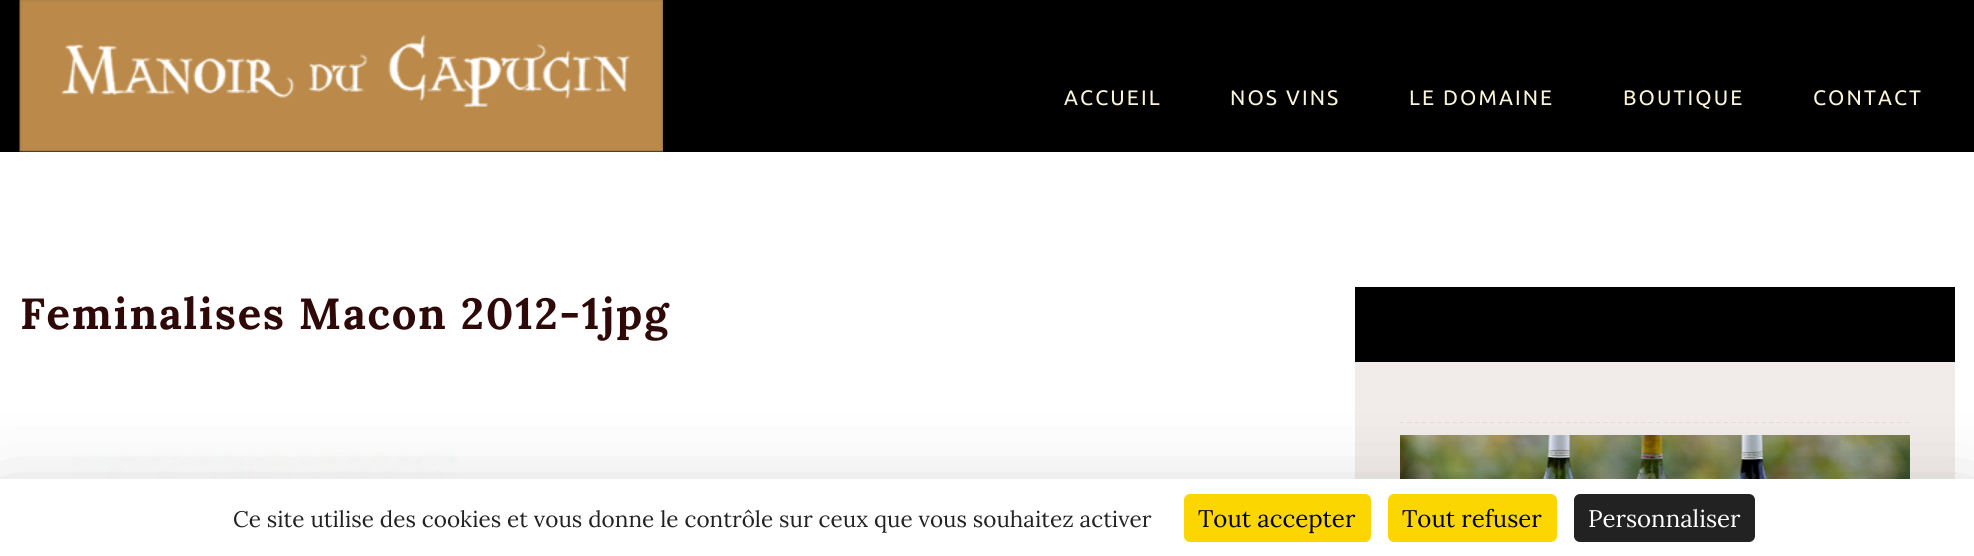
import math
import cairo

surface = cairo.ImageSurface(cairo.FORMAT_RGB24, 1974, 556)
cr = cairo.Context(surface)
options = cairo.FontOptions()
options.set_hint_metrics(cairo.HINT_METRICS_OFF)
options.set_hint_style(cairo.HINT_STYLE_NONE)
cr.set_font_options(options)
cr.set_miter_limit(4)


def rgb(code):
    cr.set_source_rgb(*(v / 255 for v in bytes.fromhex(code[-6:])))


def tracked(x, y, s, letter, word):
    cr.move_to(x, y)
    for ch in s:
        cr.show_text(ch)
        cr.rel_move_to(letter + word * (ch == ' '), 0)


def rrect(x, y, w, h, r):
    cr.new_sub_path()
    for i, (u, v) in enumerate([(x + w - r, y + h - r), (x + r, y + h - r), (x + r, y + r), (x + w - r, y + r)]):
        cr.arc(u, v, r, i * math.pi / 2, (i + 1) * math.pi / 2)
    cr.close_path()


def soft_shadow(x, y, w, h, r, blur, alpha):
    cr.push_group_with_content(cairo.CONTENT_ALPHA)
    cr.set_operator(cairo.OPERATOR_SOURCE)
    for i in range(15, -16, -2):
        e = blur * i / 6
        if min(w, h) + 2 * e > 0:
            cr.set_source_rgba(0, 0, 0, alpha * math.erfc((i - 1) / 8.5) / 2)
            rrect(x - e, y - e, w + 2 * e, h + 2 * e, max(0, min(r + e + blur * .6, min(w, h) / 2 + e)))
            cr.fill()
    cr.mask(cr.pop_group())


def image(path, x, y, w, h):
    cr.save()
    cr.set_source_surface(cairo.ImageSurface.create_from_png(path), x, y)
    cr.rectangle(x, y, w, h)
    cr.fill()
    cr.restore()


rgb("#ffffff")
cr.paint()
rgb("#000000")
cr.rectangle(0, 0, 1974, 152)
cr.fill()
image("img/1.png", 19, 0, 644, 152)
image("img/2.png", 72, 452, 385, 27)
rgb("#f1ece9")
cr.rectangle(1355, 362, 600, 117)
cr.fill()
rgb("#000000")
cr.rectangle(1355, 287, 600, 75)
cr.fill()
cr.save()
cr.rectangle(1355, 422, 600, 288)
cr.clip()
cr.new_path()
cr.move_to(1399.5, 422)
cr.line_to(1909.5, 422)
rgb("#dcd4d0")
cr.set_line_width(1.5)
cr.set_dash([4.5, 3.04])
cr.stroke()
cr.restore()
image("img/3.png", 1400, 435, 510, 44)
rgb("#000000")
soft_shadow(0, 509, 1974, 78, 0, 45, 0.25)
rgb("#ffffff")
cr.rectangle(0, 479, 1974, 77)
cr.fill()
rgb("#fbd600")
rrect(1184, 494, 187, 48, 6)
cr.fill()
rrect(1388, 494, 169, 48, 6)
cr.fill()
rgb("#222222")
rrect(1574, 494, 181, 48, 6)
cr.fill()
cr.select_font_face("Ubuntu")
cr.set_font_size(21)
rgb("#faf5d9")
for x, y, s in [
    (1064, 105, "ACCUEIL"),
    (1230, 105, "NOS VINS"),
    (1409, 105, "LE DOMAINE"),
    (1623, 105, "BOUTIQUE"),
    (1813, 105, "CONTACT"),
]:
    tracked(x, y, s, 2.1, 0)
cr.select_font_face("Lora", cairo.FONT_SLANT_NORMAL, cairo.FONT_WEIGHT_BOLD)
cr.set_font_size(43.5)
rgb("#2e0908")
tracked(20, 329, "Feminalises Macon 2012-1jpg", 1.75, 0)
cr.select_font_face("Lora")
cr.set_font_size(22.5)
rgb("#222222")
cr.move_to(233, 527)
cr.show_text("Ce site utilise des cookies et vous donne le contrôle sur ceux que vous souhaitez activer")
cr.set_font_size(24)
rgb("#000000")
cr.move_to(1198, 527)
cr.show_text("Tout accepter")
cr.move_to(1402, 527)
cr.show_text("Tout refuser")
rgb("#ffffff")
cr.move_to(1588, 527)
cr.show_text("Personnaliser")
surface.write_to_png("page.png")
